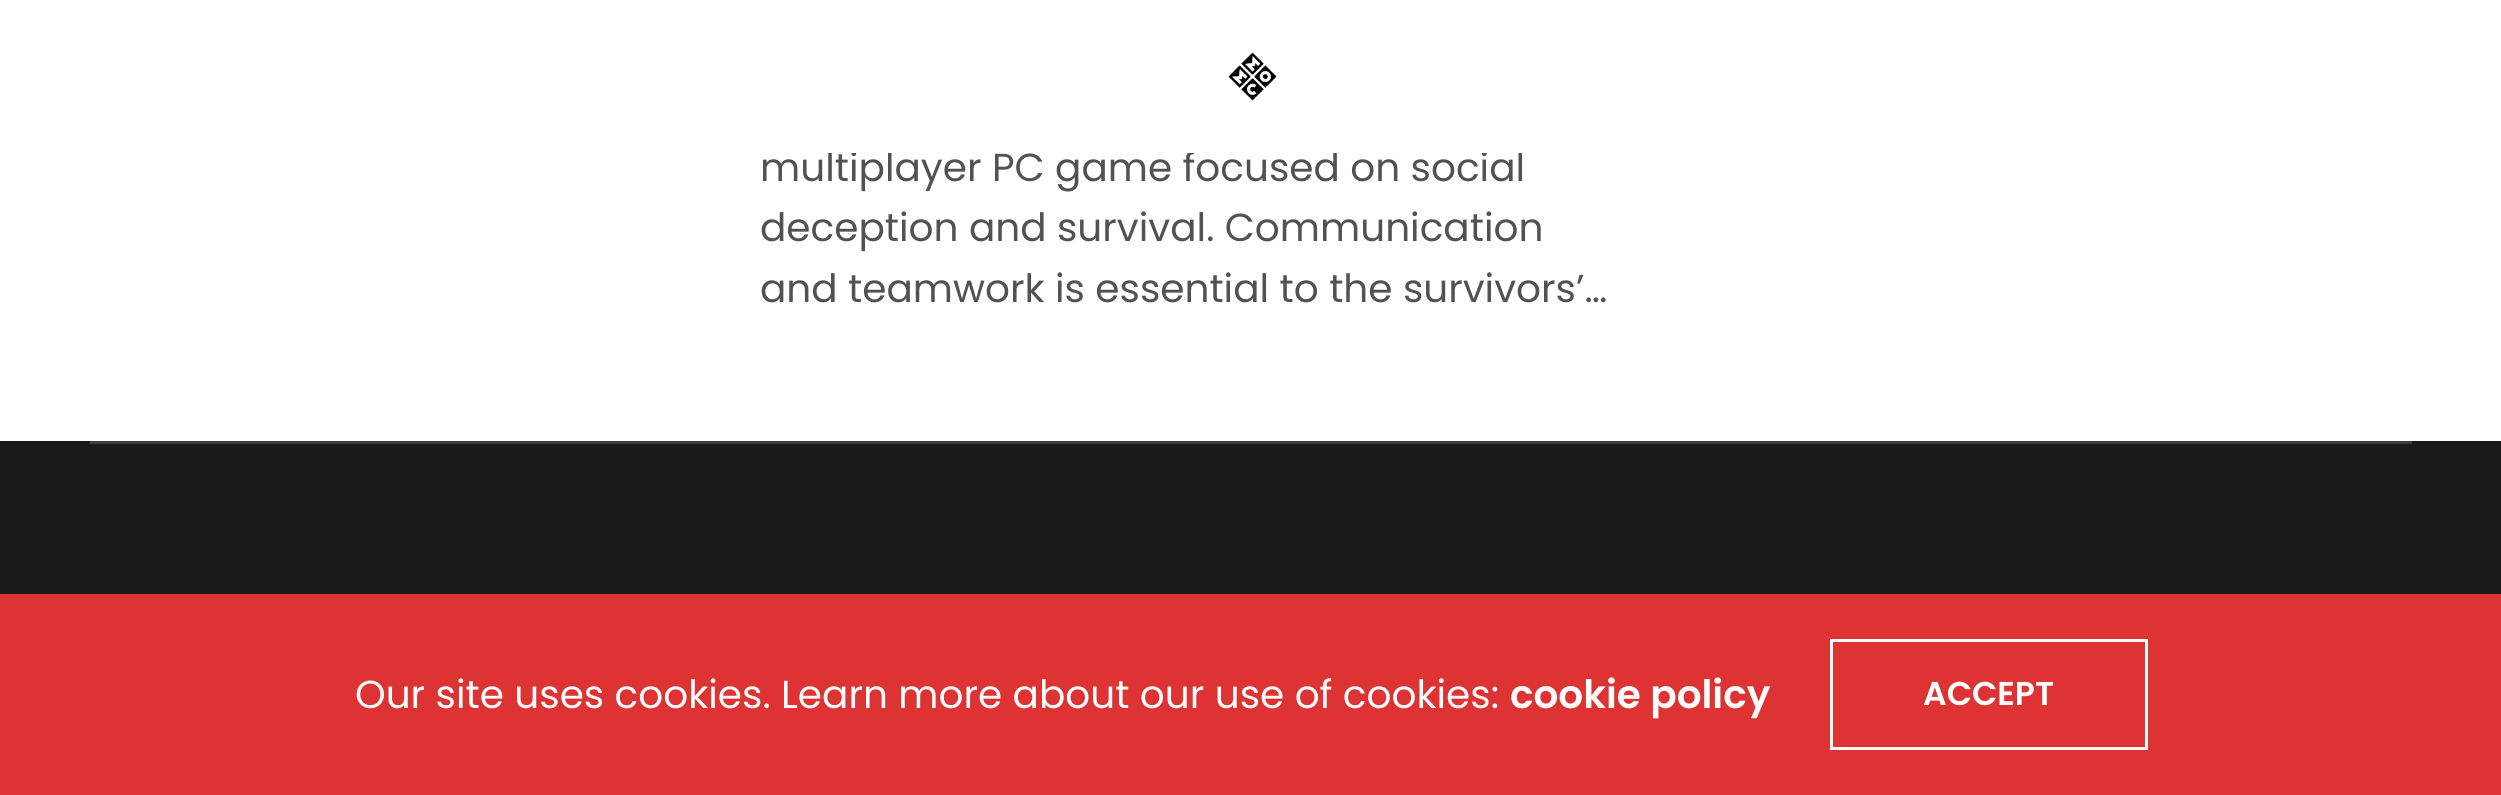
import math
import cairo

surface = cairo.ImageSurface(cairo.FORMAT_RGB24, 2501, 795)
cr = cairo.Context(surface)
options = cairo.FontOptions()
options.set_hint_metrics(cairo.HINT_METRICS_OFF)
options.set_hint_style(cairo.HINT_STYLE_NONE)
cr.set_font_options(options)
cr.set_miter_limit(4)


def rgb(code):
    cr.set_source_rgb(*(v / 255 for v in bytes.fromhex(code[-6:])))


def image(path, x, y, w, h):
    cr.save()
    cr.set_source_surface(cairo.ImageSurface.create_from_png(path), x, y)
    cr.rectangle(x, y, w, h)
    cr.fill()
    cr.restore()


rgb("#1a1a1a")
cr.paint()
rgb("#ffffff")
cr.rectangle(0, 153, 2501, 288)
cr.fill()
rgb("#3c3c3c")
cr.rectangle(90, 441, 2322, 3)
cr.fill()
image("img/2.png", 870, 564, 762, 30)
rgb("#dd3333")
cr.rectangle(0, 594, 2501, 201)
cr.fill()
cr.rectangle(1831.5, 640.5, 315, 108)
rgb("#ffffff")
cr.set_line_width(3)
cr.stroke()
cr.select_font_face("Poppins")
cr.set_font_size(39)
rgb("#525252")
cr.move_to(760, 181)
cr.show_text("multiplayer PC game focused on social")
rgb("#ffffff")
cr.rectangle(0, 0, 2501, 153)
cr.fill()
image("img/1.png", 1228, 52, 49, 49)
rgb("#525252")
cr.move_to(760, 241)
cr.show_text("deception and survival. Communication")
cr.move_to(760, 302)
cr.show_text("and teamwork is essential to the survivors’…")
rgb("#ffffff")
cr.move_to(355, 708)
cr.show_text("Our site uses cookies. Learn more about our use of cookies:")
cr.select_font_face("Poppins SemiBold")
cr.move_to(1510, 708)
cr.show_text("cookie policy")
cr.set_font_size(33)
cr.move_to(1923, 705)
cr.show_text("ACCEPT")
surface.write_to_png("page.png")
